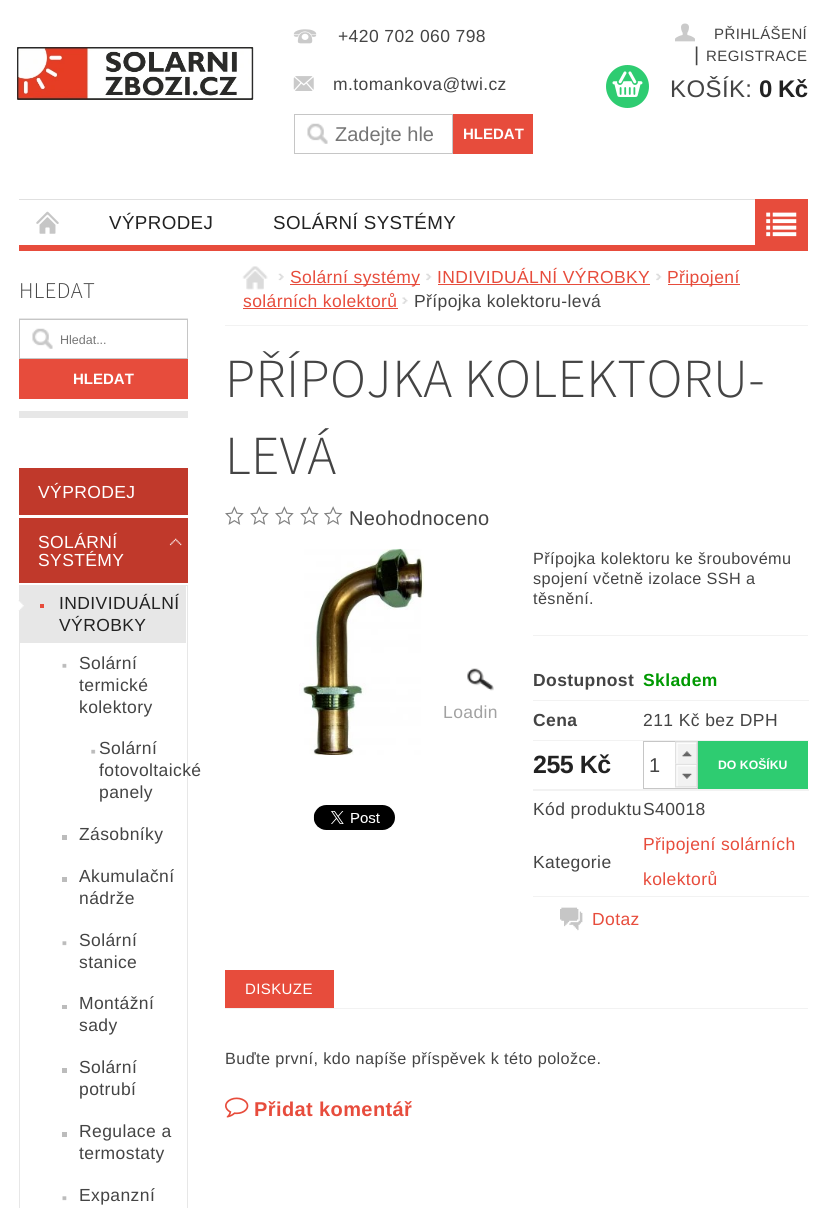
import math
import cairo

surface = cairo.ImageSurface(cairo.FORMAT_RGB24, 826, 1208)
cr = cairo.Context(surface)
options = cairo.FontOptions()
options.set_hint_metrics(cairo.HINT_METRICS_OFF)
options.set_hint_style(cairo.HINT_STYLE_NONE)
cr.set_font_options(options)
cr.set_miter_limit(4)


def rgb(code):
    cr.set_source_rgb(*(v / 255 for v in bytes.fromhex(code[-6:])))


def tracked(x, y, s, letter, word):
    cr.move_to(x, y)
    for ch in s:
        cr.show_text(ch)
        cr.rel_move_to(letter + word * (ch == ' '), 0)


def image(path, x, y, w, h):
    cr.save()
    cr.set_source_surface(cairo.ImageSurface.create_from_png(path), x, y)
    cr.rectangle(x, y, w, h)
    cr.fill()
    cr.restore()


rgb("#ffffff")
cr.paint()
rgb("#e74c3c")
cr.rectangle(19, 245, 736, 6)
cr.fill()
image("img/1.png", 17, 47, 237, 53)
image("img/2.png", 293, 29, 24, 15)
image("img/3.png", 293, 76, 21, 15)
image("img/4.png", 307, 123, 21, 21)
cr.rectangle(294.5, 114.5, 158, 39)
rgb("#c6c6c6")
cr.set_line_width(1)
cr.stroke()
rgb("#e74c3c")
cr.rectangle(453, 114, 80, 40)
cr.fill()
image("img/5.png", 675, 23, 20, 19)
rgb("#2ecc71")
cr.arc(627.5, 86.5, 21.5, 0, 2 * math.pi)
cr.fill()
image("img/6.png", 612, 71, 31, 26)
rgb("#e0e0e0")
cr.rectangle(19, 199, 736, 1)
cr.fill()
image("img/7.png", 36, 211, 23, 23)
rgb("#e74c3c")
cr.rectangle(755, 199, 53, 52)
cr.fill()
image("img/8.png", 766, 212, 31, 25)
rgb("#e7e7e7")
cr.rectangle(19, 411, 169, 7)
cr.fill()
cr.rectangle(19, 318, 169, 1)
cr.fill()
image("img/4.png", 32, 328, 21, 21)
cr.rectangle(19.5, 319.5, 168, 39)
rgb("#c6c6c6")
cr.stroke()
for x, y, w, h, color in [
    (19, 359, 169, 40, "#e74c3c"),
    (19, 468, 169, 47, "#c0392b"),
    (19, 518, 169, 65, "#c0392b"),
]:
    rgb(color)
    cr.rectangle(x, y, w, h)
    cr.fill()
image("img/9.png", 169, 538, 13, 8)
cr.rectangle(19.5, 585.5, 168, 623)
rgb("#e7e7e7")
cr.stroke()
cr.rectangle(20, 586, 166, 57)
cr.fill()
image("img/10.png", 18, 600, 6, 11)
rgb("#e74c3c")
cr.rectangle(40, 604, 4, 4)
cr.fill()
image("img/11.png", 62, 663, 5, 5)
image("img/12.png", 91, 749, 5, 5)
rgb("#bcbcbc")
cr.rectangle(62, 835, 5, 5)
cr.fill()
cr.rectangle(62, 877, 5, 5)
cr.fill()
image("img/13.png", 62, 941, 5, 5)
for x, y, w, h, color in [
    (62, 1005, 5, 4, "#bcbcbc"),
    (62, 1068, 5, 5, "#bcbcbc"),
    (62, 1132, 5, 5, "#bcbcbc"),
]:
    rgb(color)
    cr.rectangle(x, y, w, h)
    cr.fill()
image("img/13.png", 62, 1196, 5, 5)
rgb("#f2f2f2")
cr.rectangle(225, 325, 583, 1)
cr.fill()
image("img/14.png", 242, 266, 26, 24)
image("img/15.png", 278, 273, 6, 8)
rgb("#e74c3c")
cr.rectangle(438, 284, 212, 1)
cr.fill()
image("img/16.png", 656, 273, 6, 8)
cr.rectangle(668, 284, 72, 1)
cr.fill()
cr.rectangle(243, 308, 155, 1)
cr.fill()
image("img/17.png", 402, 297, 6, 7)
cr.rectangle(290, 284, 130, 1)
cr.fill()
image("img/16.png", 426, 273, 6, 8)
image("img/18.png", 225, 506, 19, 19)
image("img/18.png", 250, 506, 19, 19)
image("img/18.png", 275, 506, 19, 19)
image("img/18.png", 300, 506, 19, 19)
image("img/19.png", 324, 506, 19, 19)
image("img/20.png", 467, 668, 27, 23)
image("img/21.png", 299, 548, 125, 207)
image("img/22.png", 313, 805, 82, 25)
for x, y, w, h, color in [
    (533, 635, 275, 1, "#f2f2f2"),
    (533, 700, 276, 1, "#f2f2f2"),
    (533, 740, 276, 1, "#f2f2f2"),
    (533, 789, 276, 2, "#f2f2f2"),
]:
    rgb(color)
    cr.rectangle(x, y, w, h)
    cr.fill()
cr.rectangle(643.5, 741.5, 54, 47)
rgb("#c6c6c6")
cr.stroke()
image("img/23.png", 675, 741, 23, 23)
image("img/24.png", 675, 763, 23, 25)
rgb("#2ecc71")
cr.rectangle(698, 741, 110, 48)
cr.fill()
rgb("#f2f2f2")
cr.rectangle(533, 896, 276, 1)
cr.fill()
image("img/25.png", 560, 907, 23, 24)
cr.rectangle(225, 1008, 583, 1)
cr.fill()
rgb("#e74c3c")
cr.rectangle(225, 970, 109, 38)
cr.fill()
image("img/26.png", 225, 1097, 24, 21)
cr.select_font_face("Liberation Sans")
cr.set_font_size(17.5)
rgb("#444444")
tracked(338, 42, "+420 702 060 798", 0.4, 0)
tracked(333, 90, "m.tomankova@twi.cz", 0.4, 0)
cr.set_font_size(20)
rgb("#757575")
cr.move_to(335, 141)
cr.show_text("Zadejte hle")
cr.select_font_face("Liberation Sans", cairo.FONT_SLANT_NORMAL, cairo.FONT_WEIGHT_BOLD)
cr.set_font_size(15)
rgb("#ffffff")
cr.move_to(463, 139)
cr.show_text("HLEDAT")
cr.select_font_face("Liberation Sans")
rgb("#444444")
tracked(714, 39, "PŘIHLÁŠENÍ", 0.4, 0)
cr.set_font_size(20)
tracked(694, 61, "|", 0.4, 0)
cr.set_font_size(15)
tracked(706, 61, "REGISTRACE", 0.4, 0)
cr.set_font_size(24)
tracked(670, 97, "KOŠÍK:", 0.4, 0)
cr.select_font_face("Liberation Sans", cairo.FONT_SLANT_NORMAL, cairo.FONT_WEIGHT_BOLD)
rgb("#222222")
tracked(759, 97, "0 Kč", -0.5, 0)
cr.select_font_face("Liberation Sans")
cr.set_font_size(18.75)
tracked(109, 229, "VÝPRODEJ", 0.4, 0)
tracked(273, 229, "SOLÁRNÍ SYSTÉMY", 0.4, 0)
cr.select_font_face("Source Sans 3 Light")
cr.set_font_size(22.5)
rgb("#444444")
tracked(19, 298, "HLEDAT", 0.4, 0)
cr.select_font_face("Liberation Sans")
cr.set_font_size(12.5)
rgb("#757575")
cr.move_to(60, 344)
cr.show_text("Hledat...")
cr.select_font_face("Liberation Sans", cairo.FONT_SLANT_NORMAL, cairo.FONT_WEIGHT_BOLD)
cr.set_font_size(15)
rgb("#ffffff")
cr.move_to(73, 384)
cr.show_text("HLEDAT")
cr.select_font_face("Liberation Sans")
cr.set_font_size(17.5)
for x, y, s in [
    (38, 498, "VÝPRODEJ"),
    (38, 548, "SOLÁRNÍ"),
    (38, 566, "SYSTÉMY"),
]:
    tracked(x, y, s, 0.4, 0)
rgb("#222222")
tracked(59, 609, "INDIVIDUÁLNÍ", 0.4, 0)
tracked(59, 631, "VÝROBKY", 0.4, 0)
rgb("#444444")
for x, y, s in [
    (79, 669, "Solární"),
    (79, 691, "termické"),
    (79, 713, "kolektory"),
    (99, 754, "Solární"),
    (99, 776, "fotovoltaické"),
    (99, 798, "panely"),
    (79, 840, "Zásobníky"),
    (79, 882, "Akumulační"),
    (79, 904, "nádrže"),
    (79, 946, "Solární"),
    (79, 968, "stanice"),
    (79, 1009, "Montážní"),
    (79, 1031, "sady"),
    (79, 1073, "Solární"),
    (79, 1095, "potrubí"),
    (79, 1137, "Regulace a"),
    (79, 1159, "termostaty"),
    (79, 1201, "Expanzní"),
]:
    tracked(x, y, s, 0.4, 0)
rgb("#e74c3c")
for x, y, s in [
    (437, 283, "INDIVIDUÁLNÍ VÝROBKY"),
    (667, 283, "Připojení"),
    (243, 307, "solárních kolektorů"),
    (290, 283, "Solární systémy"),
]:
    tracked(x, y, s, 0.4, 0)
rgb("#444444")
tracked(414, 307, "Přípojka kolektoru-levá", 0.4, 0)
cr.select_font_face("Source Sans 3 Light")
cr.set_font_size(55)
tracked(225, 397, "PŘÍPOJKA KOLEKTORU-", 0.4, 0)
tracked(225, 474, "LEVÁ", 0.4, 0)
cr.select_font_face("Liberation Sans")
cr.set_font_size(20)
tracked(349, 525, "Neohodnoceno", 0.4, 0)
cr.set_font_size(17.5)
rgb("#a2a2a2")
tracked(443, 718, "Loadin", 0.4, 0)
cr.set_font_size(16.25)
rgb("#444444")
for x, y, s in [
    (533, 564, "Přípojka kolektoru ke šroubovému"),
    (533, 584, "spojení včetně izolace SSH a"),
    (533, 604, "těsnění."),
]:
    tracked(x, y, s, 0.4, 0)
cr.select_font_face("Liberation Sans", cairo.FONT_SLANT_NORMAL, cairo.FONT_WEIGHT_BOLD)
cr.set_font_size(17.5)
tracked(533, 686, "Dostupnost", 0.4, 0)
rgb("#009901")
tracked(643, 686, "Skladem", 0.4, 0)
rgb("#444444")
tracked(533, 726, "Cena", 0.4, 0)
cr.select_font_face("Liberation Sans")
tracked(643, 726, "211 Kč bez DPH", 0.4, 0)
cr.select_font_face("Liberation Sans", cairo.FONT_SLANT_NORMAL, cairo.FONT_WEIGHT_BOLD)
cr.set_font_size(25)
rgb("#222222")
tracked(533, 773, "255 Kč", -0.5, 0)
cr.select_font_face("Liberation Sans")
cr.set_font_size(20)
rgb("#444444")
cr.move_to(649, 772)
cr.show_text("1")
cr.select_font_face("Liberation Sans", cairo.FONT_SLANT_NORMAL, cairo.FONT_WEIGHT_BOLD)
cr.set_font_size(12.25)
rgb("#ffffff")
cr.move_to(718, 769)
cr.show_text("DO KOŠÍKU")
cr.select_font_face("Liberation Sans")
cr.set_font_size(17.5)
rgb("#444444")
for x, y, s in [
    (533, 815, "Kód produktu"),
    (643, 815, "S40018"),
    (533, 868, "Kategorie"),
]:
    tracked(x, y, s, 0.4, 0)
rgb("#e74c3c")
for x, y, s in [
    (643, 850, "Připojení solárních"),
    (643, 885, "kolektorů"),
    (592, 925, "Dotaz"),
]:
    tracked(x, y, s, 0.4, 0)
cr.set_font_size(15)
rgb("#ffffff")
tracked(245, 994, "DISKUZE", 0.4, 0)
cr.set_font_size(16.25)
rgb("#444444")
tracked(225, 1064, "Buďte první, kdo napíše příspěvek k této položce.", 0.4, 0)
cr.select_font_face("Liberation Sans", cairo.FONT_SLANT_NORMAL, cairo.FONT_WEIGHT_BOLD)
cr.set_font_size(20)
rgb("#e74c3c")
tracked(254, 1116, "Přidat komentář", 0.4, 0)
surface.write_to_png("page.png")
